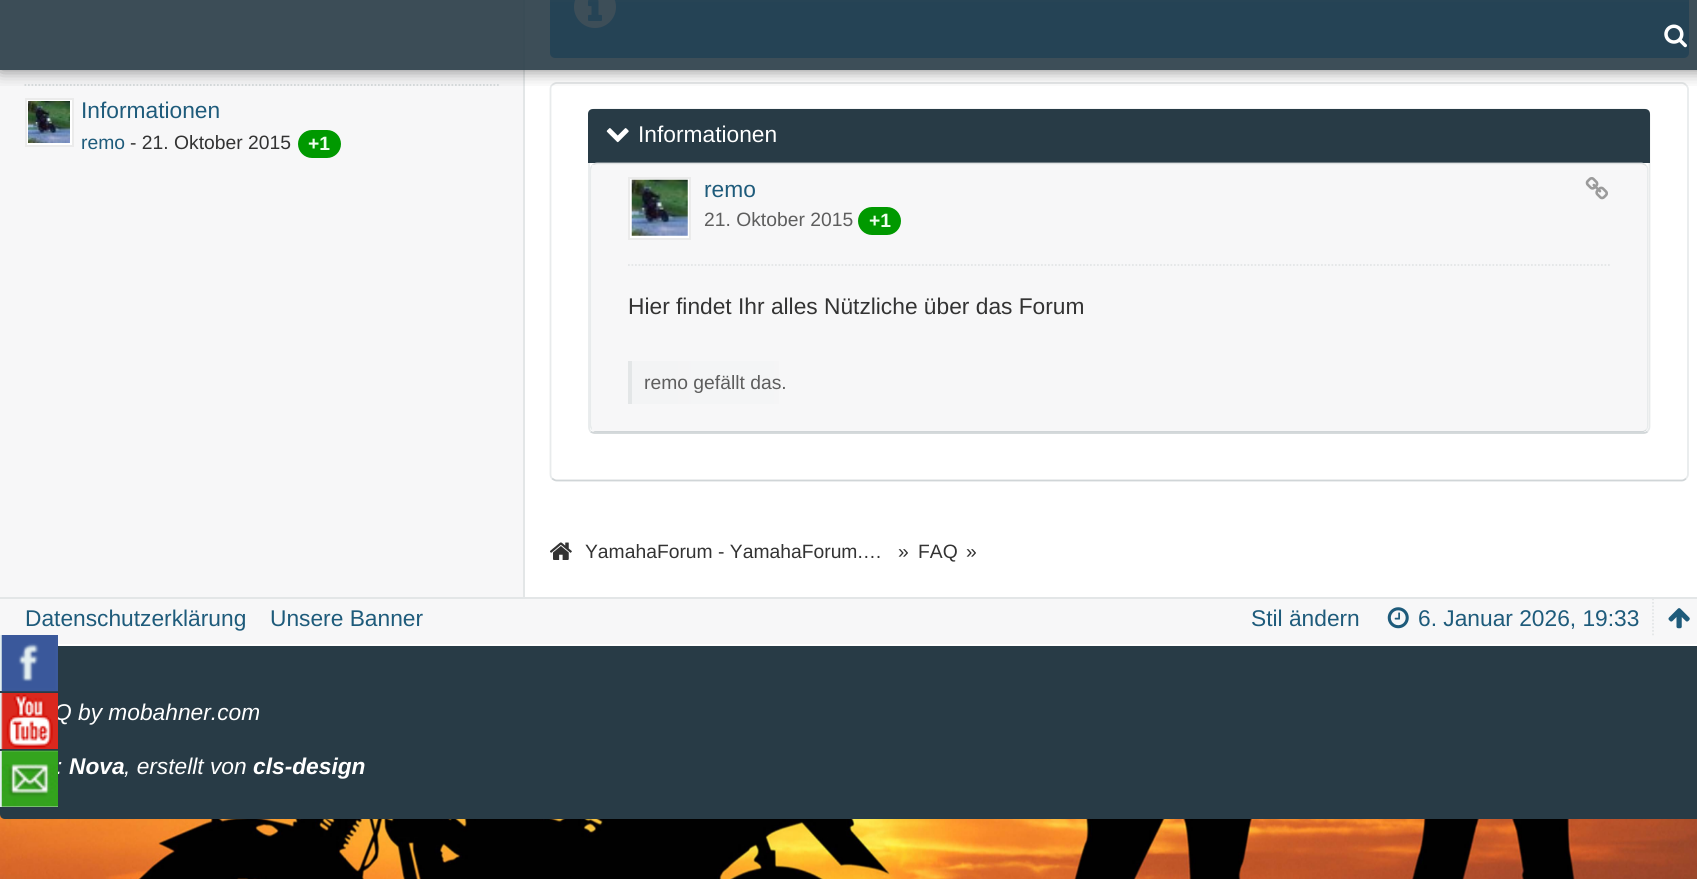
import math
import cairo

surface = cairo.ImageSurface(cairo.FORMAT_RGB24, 1697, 879)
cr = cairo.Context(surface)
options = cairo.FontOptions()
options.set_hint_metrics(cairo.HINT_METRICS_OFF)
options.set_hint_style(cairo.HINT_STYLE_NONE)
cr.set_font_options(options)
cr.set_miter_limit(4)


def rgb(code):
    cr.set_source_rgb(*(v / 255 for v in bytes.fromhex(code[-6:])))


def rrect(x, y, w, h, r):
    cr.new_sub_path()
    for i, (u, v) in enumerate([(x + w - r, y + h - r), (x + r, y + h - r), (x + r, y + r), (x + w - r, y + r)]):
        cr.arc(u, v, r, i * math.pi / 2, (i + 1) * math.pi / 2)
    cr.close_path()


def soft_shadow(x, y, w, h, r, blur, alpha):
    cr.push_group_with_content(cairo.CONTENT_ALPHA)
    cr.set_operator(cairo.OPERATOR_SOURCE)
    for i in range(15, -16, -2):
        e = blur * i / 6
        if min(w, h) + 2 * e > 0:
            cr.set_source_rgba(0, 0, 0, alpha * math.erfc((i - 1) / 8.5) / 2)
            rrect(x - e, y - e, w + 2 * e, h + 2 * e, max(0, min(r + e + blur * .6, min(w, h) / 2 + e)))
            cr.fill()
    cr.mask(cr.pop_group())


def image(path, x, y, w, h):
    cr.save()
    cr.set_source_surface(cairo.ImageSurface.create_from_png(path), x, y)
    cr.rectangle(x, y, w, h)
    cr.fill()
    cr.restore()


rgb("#ffffff")
cr.paint()
image("img/1.png", 0, 814, 1697, 65)
rgb("#0f8fe2")
rrect(551, -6, 1137, 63, 4)
cr.fill_preserve()
cr.stroke()
image("img/7.png", 574, 0, 42, 28)
cr.set_source_rgba(1, 1, 1, 0.07)
cr.rectangle(550, 0, 1147, 2)
cr.fill()
rgb("#f7f7f8")
cr.rectangle(0, 0, 523, 597)
cr.fill()
rgb("#e3e6e7")
cr.rectangle(523, 0, 2, 597)
cr.fill()
cr.new_path()
cr.move_to(24.5, 85)
cr.line_to(500.5, 85)
rgb("#d5dadb")
cr.set_line_width(1.8)
cr.set_dash([1.75, 1.75])
cr.stroke()
cr.new_path()
cr.move_to(552, 85)
cr.curve_to(553.5, 84, 555, 83, 556.5, 83)
cr.line_to(1682, 83)
cr.curve_to(1683.5, 83, 1685, 84, 1686, 85)
rgb("#e3e6e7")
cr.set_dash([])
cr.stroke()
cr.new_path()
cr.move_to(1686, 85)
cr.curve_to(1687, 86, 1688, 87.5, 1688, 89)
cr.line_to(1688, 474)
cr.curve_to(1688, 476, 1687, 477.5, 1686, 478.5)
rgb("#e8ebec")
cr.stroke()
cr.new_path()
cr.move_to(1686, 478.5)
cr.curve_to(1685, 479.5, 1683.5, 480.5, 1682, 480.5)
cr.line_to(556.5, 480.5)
cr.curve_to(555, 480.5, 553.5, 479.5, 552, 478.5)
rgb("#d0d5d7")
cr.stroke()
cr.new_path()
cr.move_to(552, 478.5)
cr.curve_to(551, 477.5, 550.5, 476, 550.5, 474)
cr.line_to(550.5, 89)
cr.curve_to(550.5, 87.5, 551, 86, 552, 85)
rgb("#e8ebec")
cr.stroke()
cr.save()
cr.rectangle(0, 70, 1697, 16)
cr.clip()
rgb("#000000")
soft_shadow(0, 0, 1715, 70, 0, 9, 0.5)
cr.restore()
cr.set_source_rgba(0.157, 0.231, 0.275, 0.9)
cr.rectangle(0, 0, 1697, 70)
cr.fill()
image("img/2.png", 1664, 24, 23, 24)
rgb("#283b46")
cr.new_path()
cr.move_to(0, 597)
cr.line_to(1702, 597)
cr.line_to(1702, 814)
cr.curve_to(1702, 817, 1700, 819, 1697, 819)
cr.line_to(5, 819)
cr.curve_to(2, 819, 0, 817, 0, 814)
cr.close_path()
cr.fill()
rgb("#f7f7f8")
cr.rectangle(0, 599, 1697, 45)
cr.fill()
rgb("#e4eff0")
cr.rectangle(0, 635, 58, 56)
cr.fill()
image("img/3.png", 1, 635, 57, 57)
cr.rectangle(0, 693, 3, 56)
cr.fill()
rgb("#ffffff")
cr.rectangle(26, 99, 47, 47)
cr.fill_preserve()
rgb("#ebebeb")
cr.set_line_width(2)
cr.stroke()
image("img/6.png", 28, 101, 42, 42)
rgb("#009900")
rrect(298, 130, 43, 28, 14)
cr.fill()
cr.new_path()
cr.move_to(590.5, 111)
cr.curve_to(592, 110, 593.5, 109.5, 595, 109.5)
cr.line_to(1643, 109.5)
cr.curve_to(1645, 109.5, 1646.5, 110, 1647.5, 111)
rgb("#e3e6e7")
cr.set_line_width(1.8)
cr.stroke()
cr.new_path()
cr.move_to(1647.5, 111)
cr.curve_to(1648.5, 112.5, 1649.5, 114, 1649.5, 115.5)
cr.line_to(1649.5, 427)
cr.curve_to(1649.5, 428.5, 1648.5, 430, 1647.5, 431.5)
rgb("#e8ebec")
cr.stroke()
cr.new_path()
cr.move_to(1647.5, 431.5)
cr.curve_to(1646.5, 432.5, 1645, 433, 1643, 433)
cr.line_to(595, 433)
cr.curve_to(593.5, 433, 592, 432.5, 590.5, 431.5)
rgb("#d0d5d7")
cr.stroke()
cr.new_path()
cr.move_to(590.5, 431.5)
cr.curve_to(589.5, 430, 589, 428.5, 589, 427)
cr.line_to(589, 115.5)
cr.curve_to(589, 114, 589.5, 112.5, 590.5, 111)
rgb("#e8ebec")
cr.stroke()
rgb("#283b46")
cr.new_path()
cr.move_to(593, 109)
cr.line_to(1645, 109)
cr.curve_to(1648, 109, 1650, 111, 1650, 114)
cr.line_to(1650, 163)
cr.line_to(588, 163)
cr.line_to(588, 114)
cr.curve_to(588, 111, 590, 109, 593, 109)
cr.close_path()
cr.fill()
image("img/8.png", 606, 128, 23, 15)
cr.new_path()
cr.move_to(592.5, 165.5)
cr.curve_to(593.5, 164.5, 595, 163.5, 597, 163.5)
cr.line_to(1641.5, 163.5)
cr.curve_to(1643, 163.5, 1644.5, 164.5, 1646, 165.5)
rgb("#dee1e2")
cr.stroke()
cr.new_path()
cr.move_to(1646, 165.5)
cr.curve_to(1647, 166.5, 1647.5, 168, 1647.5, 170)
cr.line_to(1647.5, 425)
cr.curve_to(1647.5, 427, 1647, 428.5, 1646, 429.5)
rgb("#e8ebec")
cr.stroke()
cr.new_path()
cr.move_to(1646, 429.5)
cr.curve_to(1644.5, 430.5, 1643, 431.5, 1641.5, 431.5)
cr.line_to(597, 431.5)
cr.curve_to(595, 431.5, 593.5, 430.5, 592.5, 429.5)
rgb("#d0d5d7")
cr.stroke()
cr.new_path()
cr.move_to(592.5, 429.5)
cr.curve_to(591.5, 428.5, 590.5, 427, 590.5, 425)
cr.line_to(590.5, 170)
cr.curve_to(590.5, 168, 591.5, 166.5, 592.5, 165.5)
rgb("#e8ebec")
cr.stroke()
rgb("#f7f7f8")
cr.new_path()
cr.move_to(592, 165)
cr.line_to(1642, 165)
cr.curve_to(1645, 165, 1647, 167, 1647, 170)
cr.line_to(1647, 426)
cr.curve_to(1647, 429, 1645, 431, 1642, 431)
cr.line_to(592, 431)
cr.close_path()
cr.fill()
rgb("#ffffff")
cr.rectangle(629, 178, 61, 61)
cr.fill_preserve()
rgb("#ebebeb")
cr.set_line_width(2)
cr.stroke()
image("img/9.png", 631, 179, 57, 57)
rgb("#009900")
rrect(858, 207, 43, 28, 14)
cr.fill()
image("img/10.png", 1585, 177, 23, 23)
cr.new_path()
cr.move_to(628, 265)
cr.line_to(1610, 265)
rgb("#e3e6e7")
cr.set_line_width(1.8)
cr.set_dash([1.75, 1.75])
cr.stroke()
gradient = cairo.LinearGradient(632, 382, 1610, 382)
gradient.add_color_stop_rgba(0, 0.953, 0.957, 0.961, 1)
gradient.add_color_stop_rgba(0.4, 0.969, 0.969, 0.973, 1)
cr.set_source(gradient)
cr.rectangle(632, 361, 147, 43)
cr.fill()
rgb("#e3e6e7")
cr.rectangle(628, 361, 4, 43)
cr.fill()
image("img/11.png", 550, 542, 22, 18)
cr.rectangle(0, 597, 1697, 2)
cr.fill()
rgb("#ffffff")
cr.rectangle(58, 644, 1639, 2)
cr.fill()
cr.new_path()
cr.move_to(1653, 598.5)
cr.line_to(1653, 637)
rgb("#e3e6e7")
cr.stroke()
image("img/12.png", 1387, 607, 22, 22)
image("img/13.png", 1668, 608, 22, 21)
cr.select_font_face("Liberation Sans")
cr.set_font_size(22.75)
rgb("#1e5b7b")
cr.move_to(81, 118)
cr.show_text("Informationen")
cr.set_font_size(19.3)
cr.move_to(81, 149)
cr.show_text("remo")
rgb("#333333")
cr.move_to(130, 149)
cr.show_text("- 21. Oktober 2015")
cr.select_font_face("Liberation Sans", cairo.FONT_SLANT_NORMAL, cairo.FONT_WEIGHT_BOLD)
rgb("#eeffee")
cr.move_to(308, 150)
cr.show_text("+1")
cr.select_font_face("Liberation Sans")
cr.set_font_size(22.75)
rgb("#ffffff")
cr.move_to(638, 142)
cr.show_text("Informationen")
rgb("#1e5b7b")
cr.move_to(704, 197)
cr.show_text("remo")
cr.set_font_size(19.3)
rgb("#5e5e5e")
cr.move_to(704, 226)
cr.show_text("21. Oktober 2015")
cr.select_font_face("Liberation Sans", cairo.FONT_SLANT_NORMAL, cairo.FONT_WEIGHT_BOLD)
rgb("#eeffee")
cr.move_to(869, 227)
cr.show_text("+1")
cr.select_font_face("Liberation Sans")
cr.set_font_size(22.75)
rgb("#333333")
cr.move_to(628, 314)
cr.show_text("Hier findet Ihr alles Nützliche über das Forum")
cr.set_font_size(19.3)
rgb("#5e5e5e")
cr.move_to(644, 389)
cr.show_text("remo gefällt das.")
rgb("#333333")
for x, y, s in [
    (585, 558, "YamahaForum - YamahaForum.…"),
    (898, 558, "»"),
    (918, 558, "FAQ"),
    (966, 558, "»"),
]:
    cr.move_to(x, y)
    cr.show_text(s)
cr.set_font_size(22.75)
rgb("#1e5b7b")
for x, y, s in [
    (25, 626, "Datenschutzerklärung"),
    (270, 626, "Unsere Banner"),
    (1251, 626, "Stil ändern"),
    (1418, 626, "6. Januar 2026, 19:33"),
]:
    cr.move_to(x, y)
    cr.show_text(s)
cr.select_font_face("Liberation Sans", cairo.FONT_SLANT_ITALIC)
rgb("#ffffff")
cr.move_to(54, 720)
cr.show_text("Q by mobahner.com")
image("img/4.png", 1, 693, 57, 56)
cr.move_to(56, 774)
cr.show_text(":")
rgb("#e4eff0")
cr.rectangle(0, 751, 58, 56)
cr.fill()
image("img/5.png", 1, 750, 57, 57)
cr.select_font_face("Liberation Sans", cairo.FONT_SLANT_ITALIC, cairo.FONT_WEIGHT_BOLD)
rgb("#ffffff")
cr.move_to(69, 774)
cr.show_text("Nova")
cr.select_font_face("Liberation Sans", cairo.FONT_SLANT_ITALIC)
cr.move_to(124, 774)
cr.show_text(", erstellt von")
cr.select_font_face("Liberation Sans", cairo.FONT_SLANT_ITALIC, cairo.FONT_WEIGHT_BOLD)
cr.move_to(253, 774)
cr.show_text("cls-design")
surface.write_to_png("page.png")
